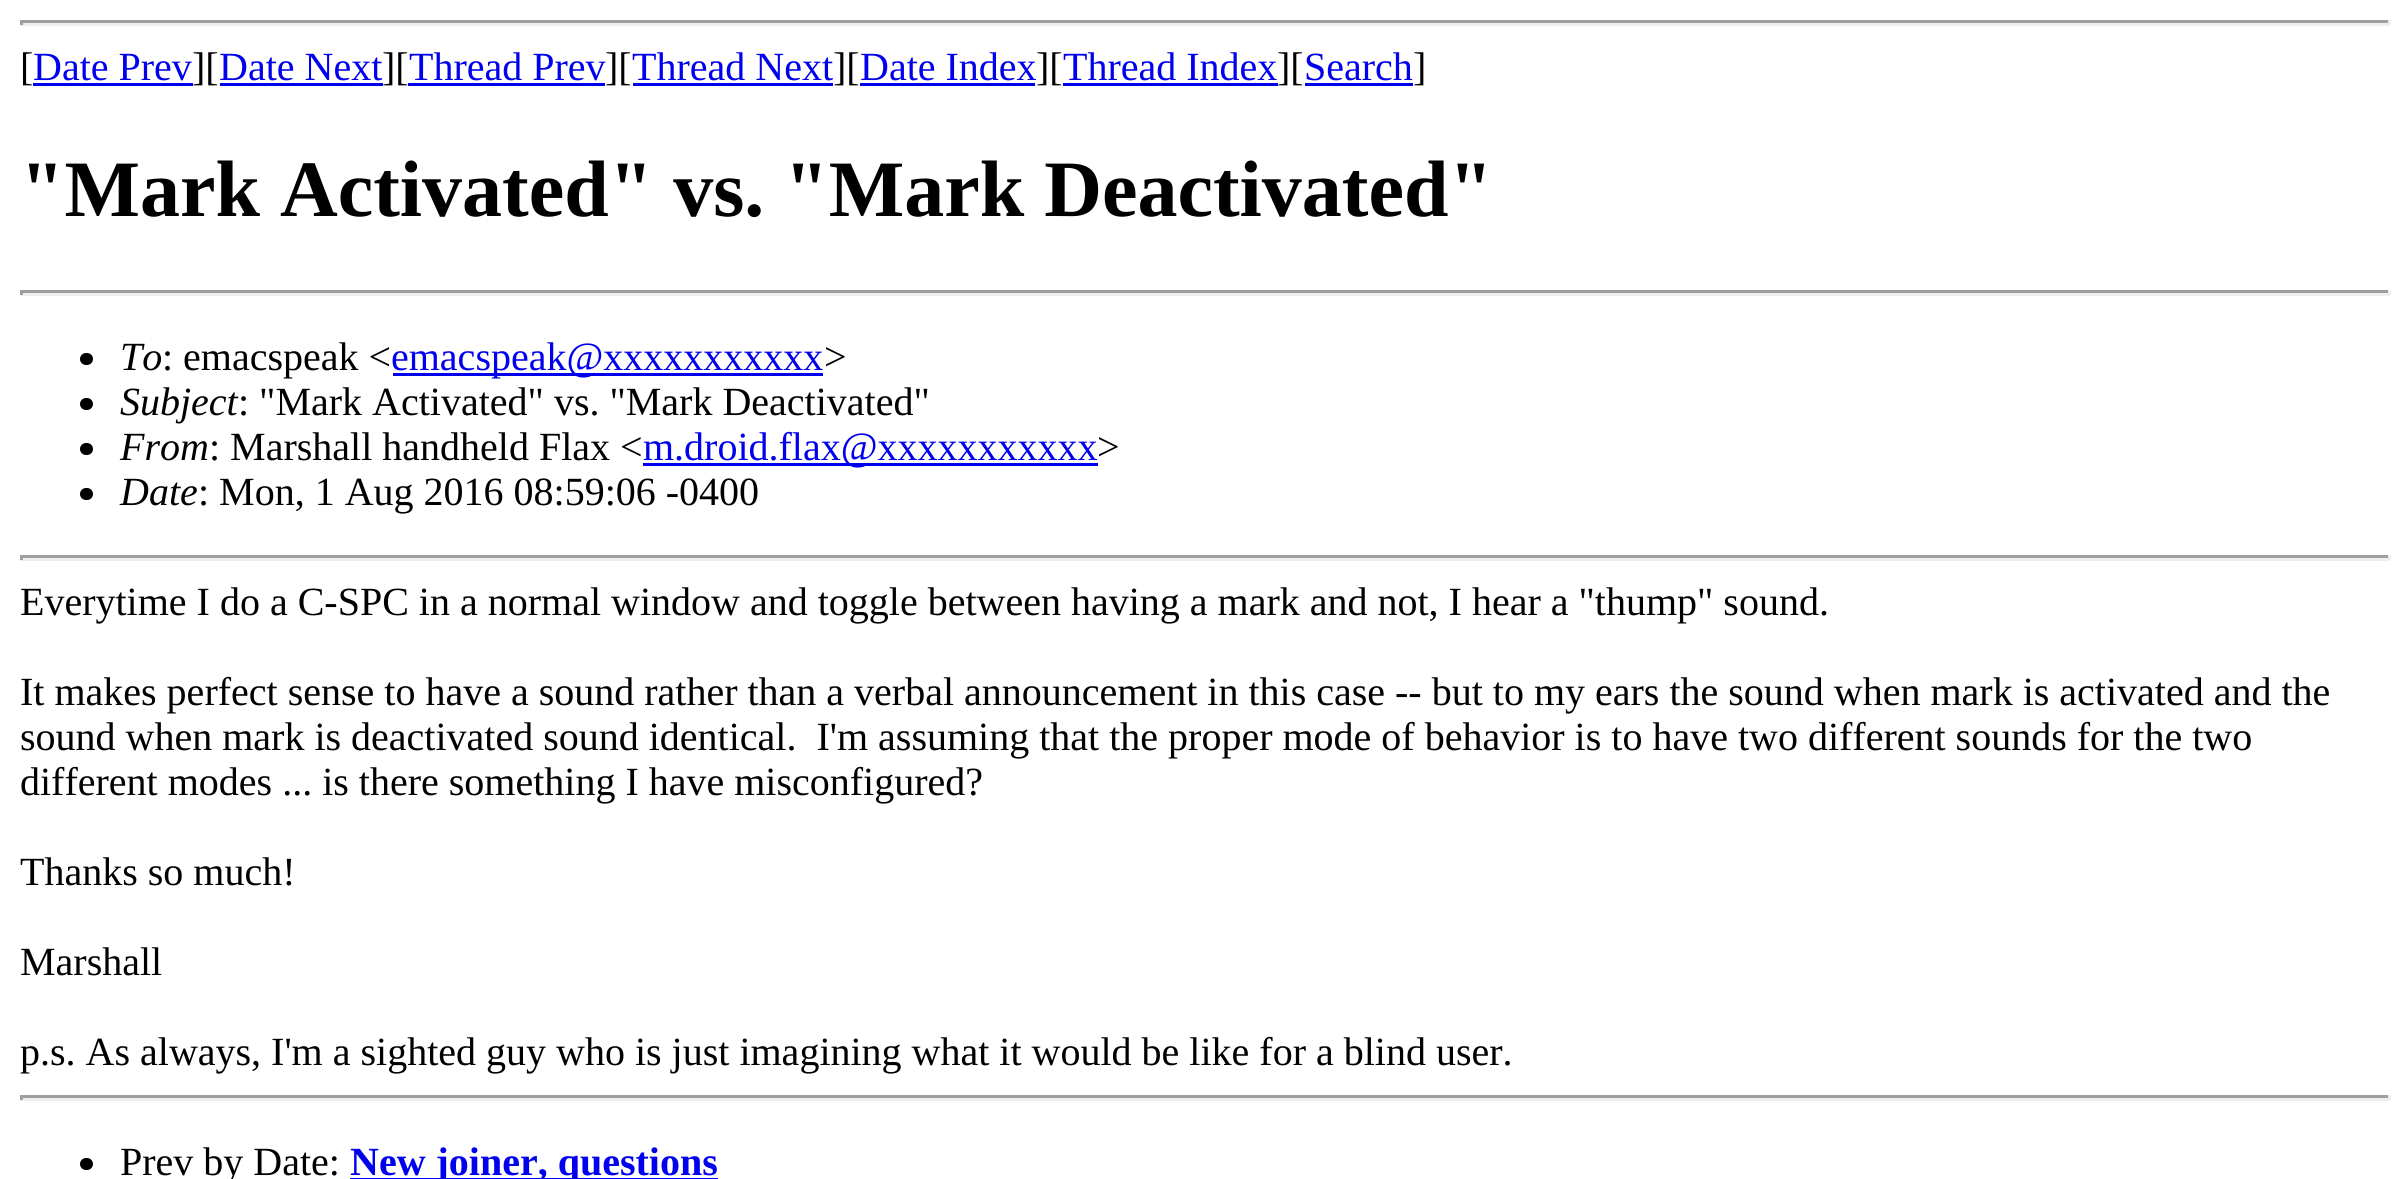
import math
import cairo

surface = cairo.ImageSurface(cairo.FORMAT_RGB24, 2408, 1179)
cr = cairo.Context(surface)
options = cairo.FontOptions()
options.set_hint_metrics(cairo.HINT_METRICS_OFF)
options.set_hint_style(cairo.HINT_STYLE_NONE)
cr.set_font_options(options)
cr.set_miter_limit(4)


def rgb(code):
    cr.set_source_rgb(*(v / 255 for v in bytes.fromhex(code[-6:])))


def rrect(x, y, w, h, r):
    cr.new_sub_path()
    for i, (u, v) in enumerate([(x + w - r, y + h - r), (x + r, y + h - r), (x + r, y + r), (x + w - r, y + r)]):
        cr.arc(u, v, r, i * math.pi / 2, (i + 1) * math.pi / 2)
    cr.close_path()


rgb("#ffffff")
cr.paint()
for x, y, w, h, color in [
    (20, 20, 2370, 3, "#9f9f9f"),
    (2388, 20, 3, 5, "#eeeeee"),
    (20, 23, 2370, 3, "#eeeeee"),
    (20, 20, 3, 5, "#9f9f9f"),
    (33, 83, 160, 3, "#0000ee"),
    (220, 83, 163, 3, "#0000ee"),
    (408, 83, 197, 3, "#0000ee"),
    (633, 83, 200, 3, "#0000ee"),
    (860, 83, 175, 3, "#0000ee"),
    (1063, 83, 215, 3, "#0000ee"),
    (1305, 83, 108, 3, "#0000ee"),
    (20, 290, 2370, 3, "#9f9f9f"),
    (2388, 290, 3, 5, "#eeeeee"),
    (20, 293, 2370, 3, "#eeeeee"),
    (20, 290, 3, 5, "#9f9f9f"),
]:
    rgb(color)
    cr.rectangle(x, y, w, h)
    cr.fill()
rgb("#000000")
rrect(80, 353, 13, 12, 6)
cr.fill()
rgb("#0000ee")
cr.rectangle(393, 373, 430, 3)
cr.fill()
rgb("#000000")
rrect(80, 398, 13, 12, 6)
cr.fill()
rrect(80, 443, 13, 12, 6)
cr.fill()
rgb("#0000ee")
cr.rectangle(643, 463, 455, 3)
cr.fill()
rgb("#000000")
rrect(80, 488, 13, 12, 6)
cr.fill()
for x, y, w, h, color in [
    (20, 555, 2370, 3, "#9f9f9f"),
    (2388, 555, 3, 5, "#eeeeee"),
    (20, 558, 2370, 3, "#eeeeee"),
    (20, 555, 3, 5, "#9f9f9f"),
    (20, 1095, 2370, 3, "#9f9f9f"),
    (2388, 1095, 3, 5, "#eeeeee"),
    (20, 1098, 2370, 3, "#eeeeee"),
    (20, 1095, 3, 5, "#9f9f9f"),
]:
    rgb(color)
    cr.rectangle(x, y, w, h)
    cr.fill()
rgb("#000000")
rrect(80, 1158, 13, 12, 6)
cr.fill()
rgb("#0000ee")
cr.rectangle(350, 1178, 368, 1)
cr.fill()
cr.select_font_face("Liberation Serif")
cr.set_font_size(40)
rgb("#000000")
cr.move_to(20, 80)
cr.show_text("[")
rgb("#0000ee")
cr.move_to(33, 80)
cr.show_text("Date Prev")
rgb("#000000")
cr.move_to(192, 80)
cr.show_text("][")
rgb("#0000ee")
cr.move_to(219, 80)
cr.show_text("Date Next")
rgb("#000000")
cr.move_to(382, 80)
cr.show_text("][")
rgb("#0000ee")
cr.move_to(409, 80)
cr.show_text("Thread Prev")
rgb("#000000")
cr.move_to(605, 80)
cr.show_text("][")
rgb("#0000ee")
cr.move_to(632, 80)
cr.show_text("Thread Next")
rgb("#000000")
cr.move_to(833, 80)
cr.show_text("][")
rgb("#0000ee")
cr.move_to(860, 80)
cr.show_text("Date Index")
rgb("#000000")
cr.move_to(1036, 80)
cr.show_text("][")
rgb("#0000ee")
cr.move_to(1063, 80)
cr.show_text("Thread Index")
rgb("#000000")
cr.move_to(1277, 80)
cr.show_text("][")
rgb("#0000ee")
cr.move_to(1304, 80)
cr.show_text("Search")
rgb("#000000")
cr.move_to(1413, 80)
cr.show_text("]")
cr.select_font_face("Liberation Serif", cairo.FONT_SLANT_NORMAL, cairo.FONT_WEIGHT_BOLD)
cr.set_font_size(80)
cr.move_to(20, 216)
cr.show_text("\"Mark Activated\" vs. \"Mark Deactivated\"")
cr.select_font_face("Liberation Serif", cairo.FONT_SLANT_ITALIC)
cr.set_font_size(40)
cr.move_to(120, 370)
cr.show_text("To")
cr.select_font_face("Liberation Serif")
cr.move_to(162, 370)
cr.show_text(": emacspeak <")
rgb("#0000ee")
cr.move_to(391, 370)
cr.show_text("emacspeak@xxxxxxxxxxx")
rgb("#000000")
cr.move_to(824, 370)
cr.show_text(">")
cr.select_font_face("Liberation Serif", cairo.FONT_SLANT_ITALIC)
cr.move_to(120, 415)
cr.show_text("Subject")
cr.select_font_face("Liberation Serif")
cr.move_to(238, 415)
cr.show_text(": \"Mark Activated\" vs. \"Mark Deactivated\"")
cr.select_font_face("Liberation Serif", cairo.FONT_SLANT_ITALIC)
cr.move_to(120, 460)
cr.show_text("From")
cr.select_font_face("Liberation Serif")
cr.move_to(209, 460)
cr.show_text(": Marshall handheld Flax <")
rgb("#0000ee")
cr.move_to(643, 460)
cr.show_text("m.droid.flax@xxxxxxxxxxx")
rgb("#000000")
cr.move_to(1097, 460)
cr.show_text(">")
cr.select_font_face("Liberation Serif", cairo.FONT_SLANT_ITALIC)
cr.move_to(120, 505)
cr.show_text("Date")
cr.select_font_face("Liberation Serif")
for x, y, s in [
    (198, 505, ": Mon, 1 Aug 2016 08:59:06 -0400"),
    (20, 615, "Everytime I do a C-SPC in a normal window and toggle between having a mark and not, I hear a \"thump\" sound."),
    (20, 705, "It makes perfect sense to have a sound rather than a verbal announcement in this case -- but to my ears the sound when mark is activated and the"),
    (20, 750, "sound when mark is deactivated sound identical.  I'm assuming that the proper mode of behavior is to have two different sounds for the two"),
    (20, 795, "different modes ... is there something I have misconfigured?"),
    (20, 885, "Thanks so much!"),
    (20, 975, "Marshall"),
    (20, 1065, "p.s. As always, I'm a sighted guy who is just imagining what it would be like for a blind user."),
    (120, 1175, "Prev by Date:"),
]:
    cr.move_to(x, y)
    cr.show_text(s)
cr.select_font_face("Liberation Serif", cairo.FONT_SLANT_NORMAL, cairo.FONT_WEIGHT_BOLD)
rgb("#0000ee")
cr.move_to(350, 1175)
cr.show_text("New joiner, questions")
surface.write_to_png("page.png")
